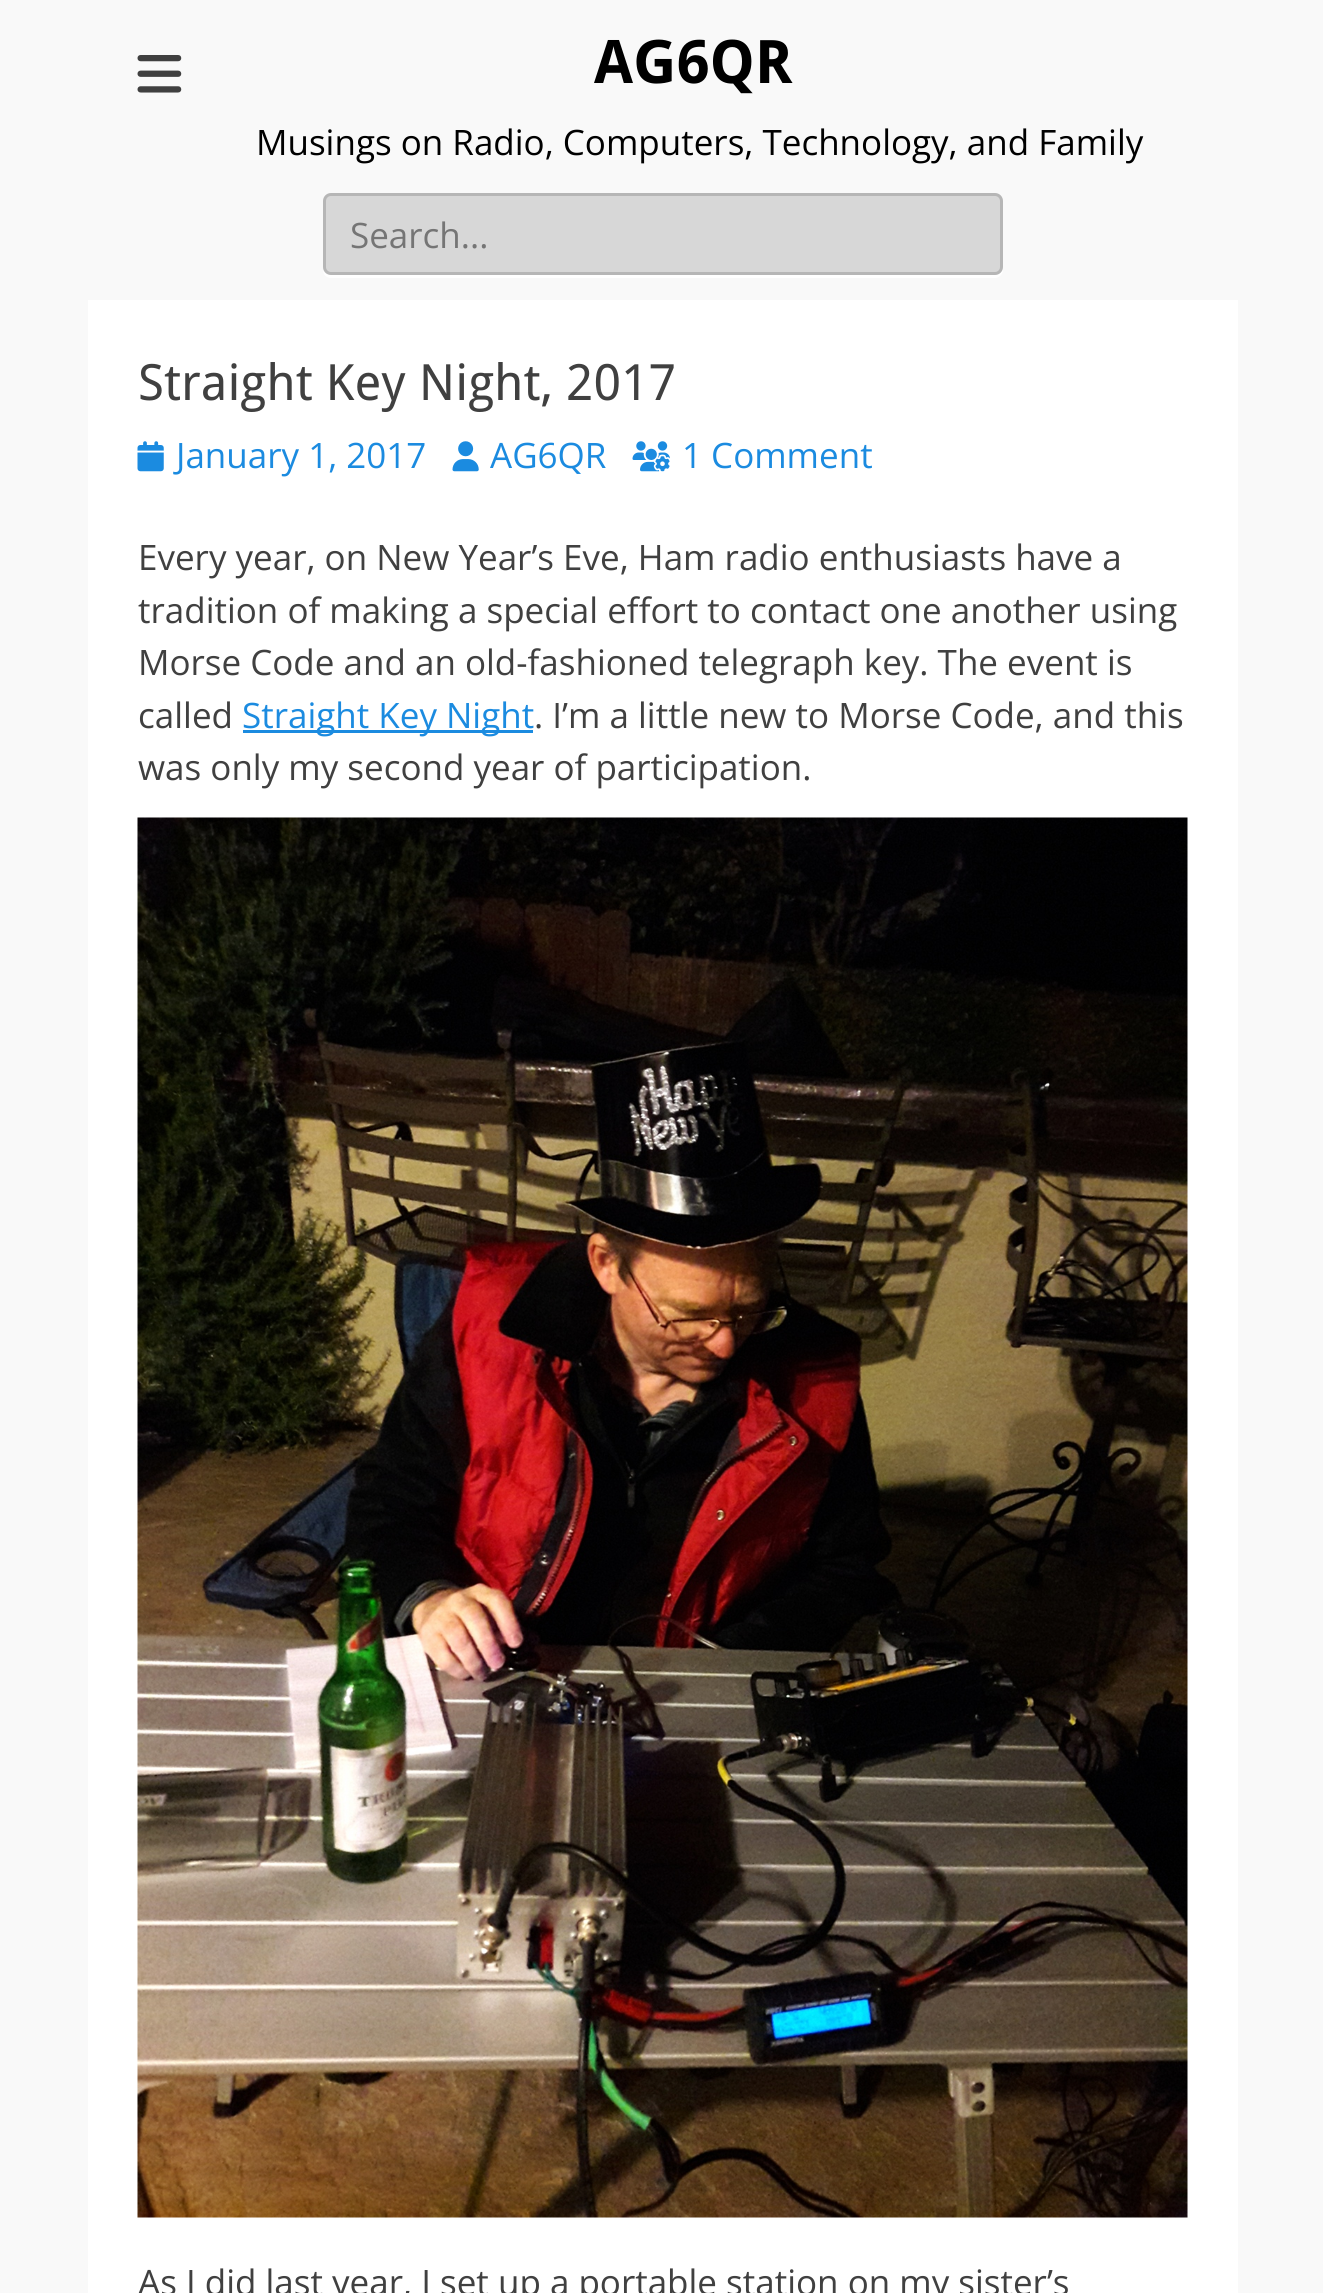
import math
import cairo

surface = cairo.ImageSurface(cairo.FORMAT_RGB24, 1323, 2293)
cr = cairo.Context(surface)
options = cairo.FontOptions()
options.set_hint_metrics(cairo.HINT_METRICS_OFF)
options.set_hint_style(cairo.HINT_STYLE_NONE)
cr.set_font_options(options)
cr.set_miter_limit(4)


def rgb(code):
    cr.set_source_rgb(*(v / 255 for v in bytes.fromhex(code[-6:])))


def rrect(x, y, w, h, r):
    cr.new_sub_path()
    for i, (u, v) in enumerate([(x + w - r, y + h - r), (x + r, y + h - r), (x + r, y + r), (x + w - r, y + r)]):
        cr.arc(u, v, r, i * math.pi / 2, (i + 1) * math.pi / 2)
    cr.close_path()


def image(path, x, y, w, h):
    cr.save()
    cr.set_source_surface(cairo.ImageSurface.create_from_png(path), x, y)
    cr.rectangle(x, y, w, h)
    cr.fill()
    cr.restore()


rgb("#f9f9f9")
cr.paint()
image("img/1.png", 137, 55, 45, 38)
rgb("#ffffff")
cr.new_path()
cr.move_to(323, 270)
cr.curve_to(323, 275, 327, 278, 331, 278)
cr.line_to(995, 278)
cr.curve_to(999, 278, 1003, 274, 1003, 270)
cr.line_to(1003, 203)
cr.line_to(1002, 200)
cr.line_to(1002, 268)
cr.curve_to(1002, 272, 999, 275, 995, 275)
cr.line_to(330, 275)
cr.curve_to(327, 275, 324, 273, 323, 270)
cr.close_path()
cr.fill()
rgb("#d7d7d7")
rrect(324.5, 194.5, 677, 79, 6.5)
cr.fill_preserve()
rgb("#b6b6b6")
cr.set_line_width(3)
cr.stroke()
rgb("#ffffff")
cr.rectangle(88, 300, 1150, 1993)
cr.fill()
image("img/2.png", 137, 441, 27, 31)
image("img/3.png", 452, 441, 27, 31)
image("img/4.png", 632, 441, 38, 31)
rgb("#1b8be0")
cr.rectangle(243, 730, 290, 3)
cr.fill()
image("img/5.png", 137, 817, 1051, 1401)
cr.select_font_face("Droid Sans", cairo.FONT_SLANT_NORMAL, cairo.FONT_WEIGHT_BOLD)
cr.set_font_size(60)
rgb("#000000")
cr.move_to(594, 83)
cr.show_text("AG6QR")
cr.select_font_face("Open Sans")
cr.set_font_size(35)
cr.move_to(256, 155)
cr.show_text("Musings on Radio, Computers, Technology, and Family")
rgb("#757575")
cr.move_to(350, 248)
cr.show_text("Search...")
cr.select_font_face("Droid Sans")
cr.set_font_size(50)
rgb("#404040")
cr.move_to(138, 400)
cr.show_text("Straight Key Night, 2017")
cr.select_font_face("Open Sans")
cr.set_font_size(35)
rgb("#1b8be0")
for x, y, s in [
    (176, 468, "January 1, 2017"),
    (490, 468, "AG6QR"),
    (682, 468, "1 Comment"),
]:
    cr.move_to(x, y)
    cr.show_text(s)
rgb("#404040")
for x, y, s in [
    (138, 570, "Every year, on New Year’s Eve, Ham radio enthusiasts have a"),
    (138, 623, "tradition of making a special effort to contact one another using"),
    (138, 675, "Morse Code and an old-fashioned telegraph key. The event is"),
    (138, 728, "called"),
]:
    cr.move_to(x, y)
    cr.show_text(s)
rgb("#1b8be0")
cr.move_to(242, 728)
cr.show_text("Straight Key Night")
rgb("#404040")
for x, y, s in [
    (534, 728, ". I’m a little new to Morse Code, and this"),
    (138, 780, "was only my second year of participation."),
    (138, 2295, "As I did last year, I set up a portable station on my sister’s"),
]:
    cr.move_to(x, y)
    cr.show_text(s)
surface.write_to_png("page.png")
